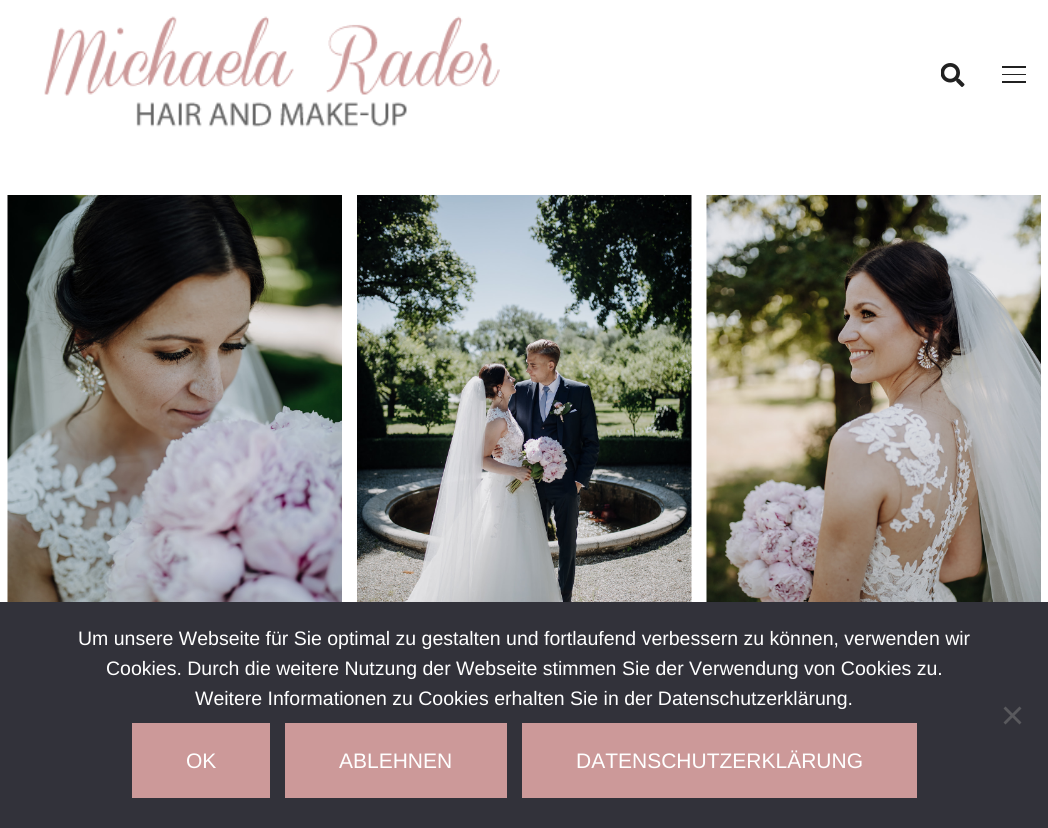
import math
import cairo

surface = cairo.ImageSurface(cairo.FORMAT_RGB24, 1048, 828)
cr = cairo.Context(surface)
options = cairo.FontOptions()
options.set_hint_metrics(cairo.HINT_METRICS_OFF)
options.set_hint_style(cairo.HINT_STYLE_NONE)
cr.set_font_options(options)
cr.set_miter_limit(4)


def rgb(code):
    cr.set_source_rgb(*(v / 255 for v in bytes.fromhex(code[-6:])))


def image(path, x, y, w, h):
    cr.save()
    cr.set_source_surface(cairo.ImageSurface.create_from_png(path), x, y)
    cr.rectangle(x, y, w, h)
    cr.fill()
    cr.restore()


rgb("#ffffff")
cr.paint()
image("img/1.png", 44, 16, 456, 111)
image("img/2.png", 941, 63, 24, 24)
for x, y, w, h, color in [
    (1002, 66, 24, 2, "#212121"),
    (1002, 74, 24, 1, "#212121"),
    (1002, 81, 24, 2, "#212121"),
]:
    rgb(color)
    cr.rectangle(x, y, w, h)
    cr.fill()
image("img/3.png", 7, 195, 335, 407)
image("img/4.png", 357, 195, 335, 407)
image("img/5.png", 706, 195, 335, 407)
rgb("#32323a")
cr.rectangle(0, 602, 1048, 226)
cr.fill()
rgb("#59595d")
cr.new_path()
cr.move_to(1019.5, 706.5)
cr.line_to(1021.5, 708.5)
cr.line_to(1005.5, 724.5)
cr.line_to(1003.5, 722.5)
cr.close_path()
cr.fill()
cr.new_path()
cr.move_to(1003.5, 708.5)
cr.line_to(1005.5, 706.5)
cr.line_to(1021.5, 722.5)
cr.line_to(1019.5, 724.5)
cr.close_path()
cr.fill()
for x, y, w, h, color in [
    (132, 723, 138, 75, "#cc9999"),
    (285, 723, 222, 75, "#cc9999"),
    (522, 723, 395, 75, "#cc9999"),
]:
    rgb(color)
    cr.rectangle(x, y, w, h)
    cr.fill()
cr.select_font_face("Liberation Sans")
cr.set_font_size(19.5)
rgb("#ffffff")
for x, y, s in [
    (78, 645, "Um unsere Webseite für Sie optimal zu gestalten und fortlaufend verbessern zu können, verwenden wir"),
    (106, 675, "Cookies. Durch die weitere Nutzung der Webseite stimmen Sie der Verwendung von Cookies zu."),
    (195, 705, "Weitere Informationen zu Cookies erhalten Sie in der Datenschutzerklärung."),
]:
    cr.move_to(x, y)
    cr.show_text(s)
cr.set_font_size(21)
for x, y, s in [
    (186, 768, "OK"),
    (339, 768, "ABLEHNEN"),
    (576, 768, "DATENSCHUTZERKLÄRUNG"),
]:
    cr.move_to(x, y)
    cr.show_text(s)
surface.write_to_png("page.png")
